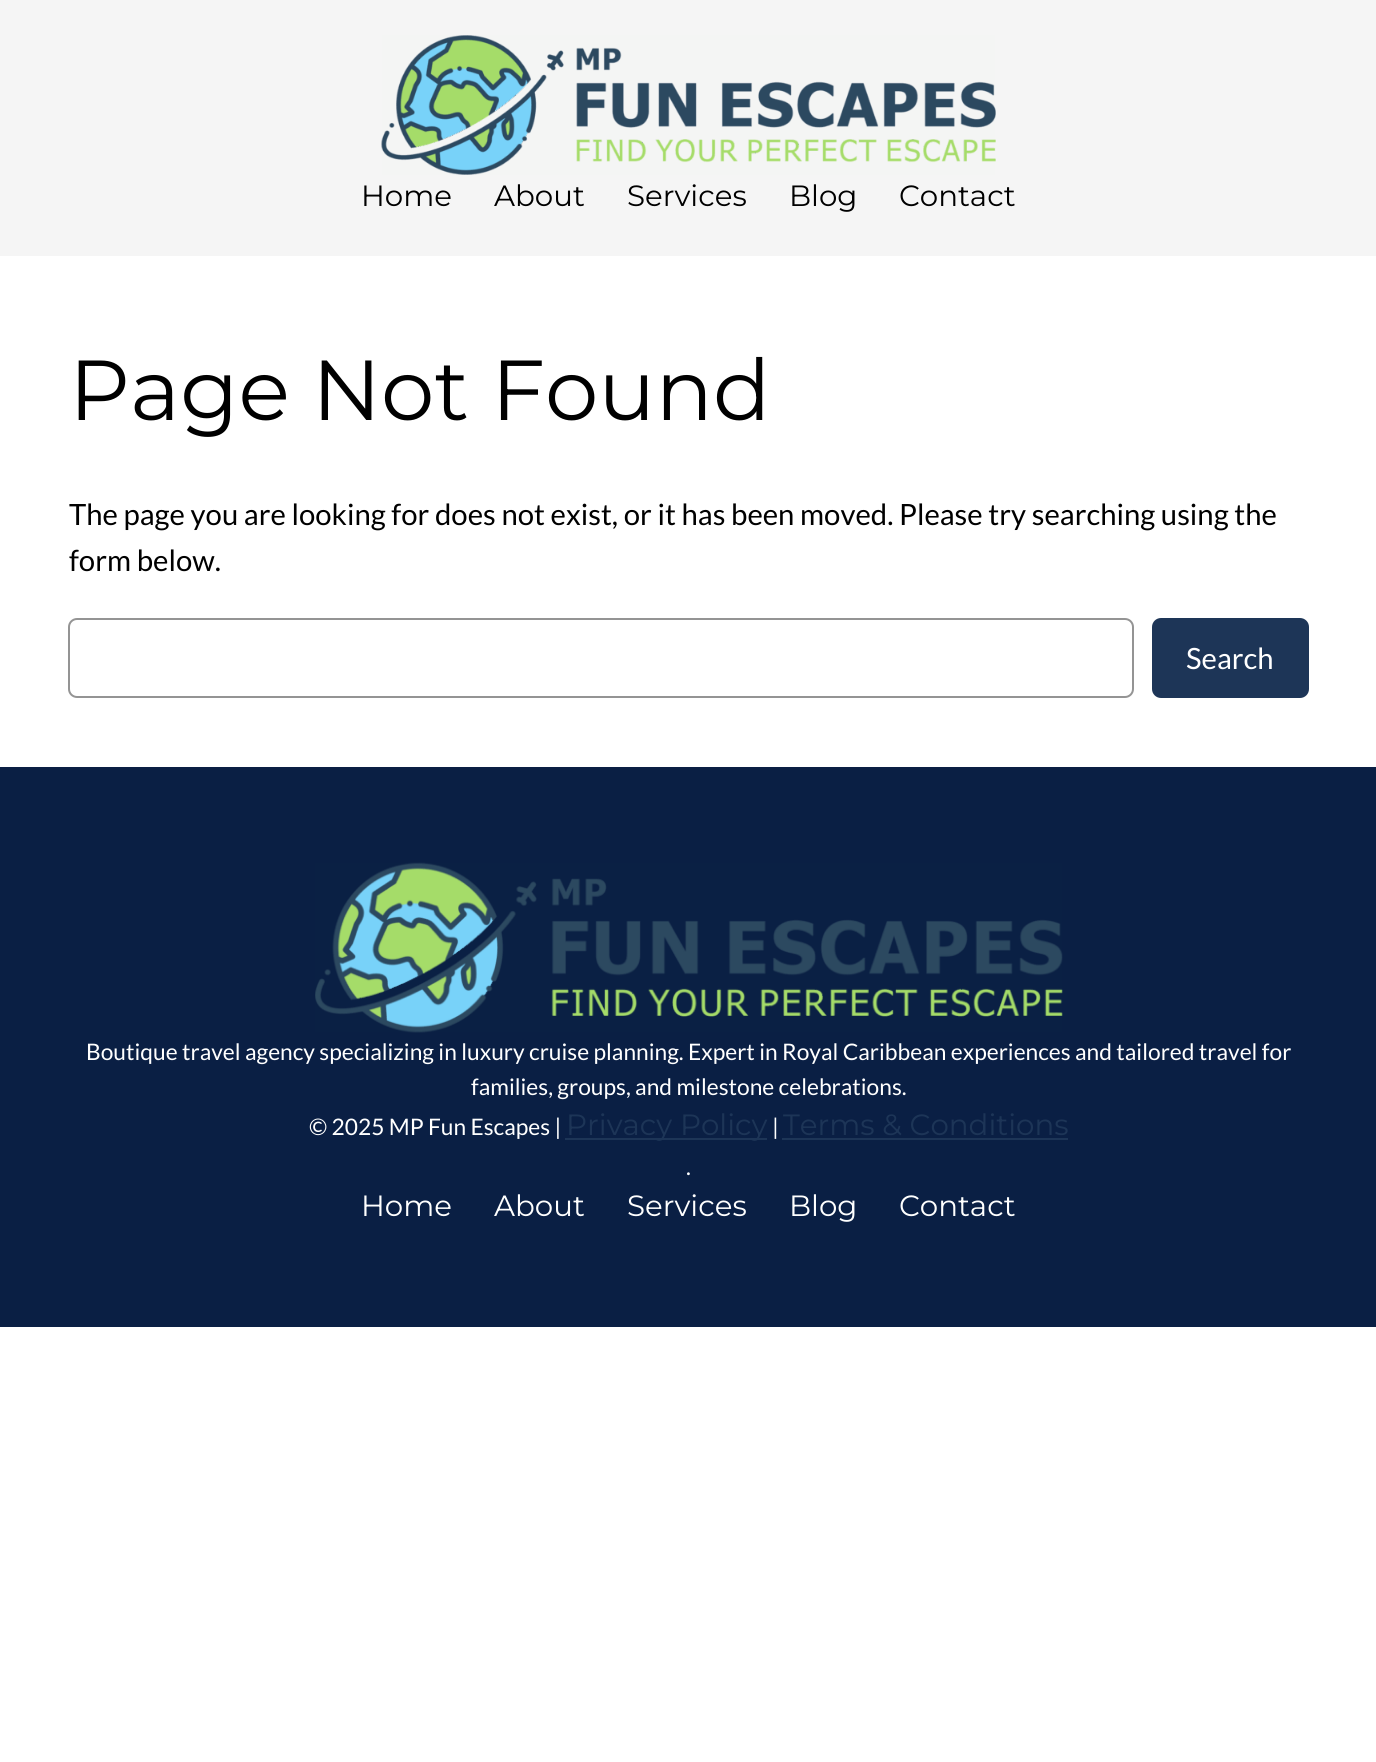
import math
import cairo

surface = cairo.ImageSurface(cairo.FORMAT_RGB24, 1376, 1762)
cr = cairo.Context(surface)
options = cairo.FontOptions()
options.set_hint_metrics(cairo.HINT_METRICS_OFF)
options.set_hint_style(cairo.HINT_STYLE_NONE)
cr.set_font_options(options)
cr.set_miter_limit(4)


def rgb(code):
    cr.set_source_rgb(*(v / 255 for v in bytes.fromhex(code[-6:])))


def rrect(x, y, w, h, r):
    cr.new_sub_path()
    for i, (u, v) in enumerate([(x + w - r, y + h - r), (x + r, y + h - r), (x + r, y + r), (x + w - r, y + r)]):
        cr.arc(u, v, r, i * math.pi / 2, (i + 1) * math.pi / 2)
    cr.close_path()


def image(path, x, y, w, h):
    cr.save()
    cr.set_source_surface(cairo.ImageSurface.create_from_png(path), x, y)
    cr.rectangle(x, y, w, h)
    cr.fill()
    cr.restore()


rgb("#ffffff")
cr.paint()
rgb("#f5f5f5")
cr.rectangle(0, 0, 1376, 256)
cr.fill()
image("img/1.png", 381, 35, 615, 140)
rrect(69, 619, 1064, 78, 8)
rgb("#949494")
cr.stroke()
rgb("#1d3557")
rrect(1152, 618, 157, 80, 9)
cr.fill()
rgb("#0a1f44")
cr.rectangle(0, 767, 1376, 560)
cr.fill()
image("img/2.png", 315, 862, 748, 171)
rgb("#1d3557")
cr.rectangle(565, 1138, 202, 2)
cr.fill()
cr.rectangle(782, 1138, 286, 2)
cr.fill()
cr.select_font_face("Montserrat Thin")
cr.set_font_size(29.3)
rgb("#000000")
for x, y, s in [
    (361, 206, "Home"),
    (494, 206, "About"),
    (627, 206, "Services"),
    (789, 206, "Blog"),
    (899, 206, "Contact"),
]:
    cr.move_to(x, y)
    cr.show_text(s)
cr.set_font_size(85)
cr.move_to(69, 420)
cr.show_text("Page Not Found")
cr.select_font_face("Lato")
cr.set_font_size(29.3)
cr.move_to(69, 525)
cr.show_text("The page you are looking for does not exist, or it has been moved. Please try searching using the")
cr.move_to(69, 571)
cr.show_text("form below.")
rgb("#ffffff")
cr.move_to(1186, 669)
cr.show_text("Search")
cr.set_font_size(22.75)
for x, y, s in [
    (86, 1060, "Boutique travel agency specializing in luxury cruise planning. Expert in Royal Caribbean experiences and tailored travel for"),
    (471, 1095, "families, groups, and milestone celebrations."),
    (309, 1135, "© 2025 MP Fun Escapes |"),
]:
    cr.move_to(x, y)
    cr.show_text(s)
cr.select_font_face("Montserrat Thin")
cr.set_font_size(29.3)
rgb("#1d3557")
cr.move_to(566, 1135)
cr.show_text("Privacy Policy")
cr.select_font_face("Lato")
cr.set_font_size(22.75)
rgb("#ffffff")
cr.move_to(772, 1135)
cr.show_text("|")
cr.select_font_face("Montserrat Thin")
cr.set_font_size(29.3)
rgb("#1d3557")
cr.move_to(783, 1135)
cr.show_text("Terms & Conditions")
cr.select_font_face("Lato")
cr.set_font_size(22.75)
rgb("#ffffff")
cr.move_to(686, 1175)
cr.show_text(".")
cr.select_font_face("Montserrat Thin")
cr.set_font_size(29.3)
for x, y, s in [
    (361, 1216, "Home"),
    (494, 1216, "About"),
    (627, 1216, "Services"),
    (789, 1216, "Blog"),
    (899, 1216, "Contact"),
]:
    cr.move_to(x, y)
    cr.show_text(s)
surface.write_to_png("page.png")
